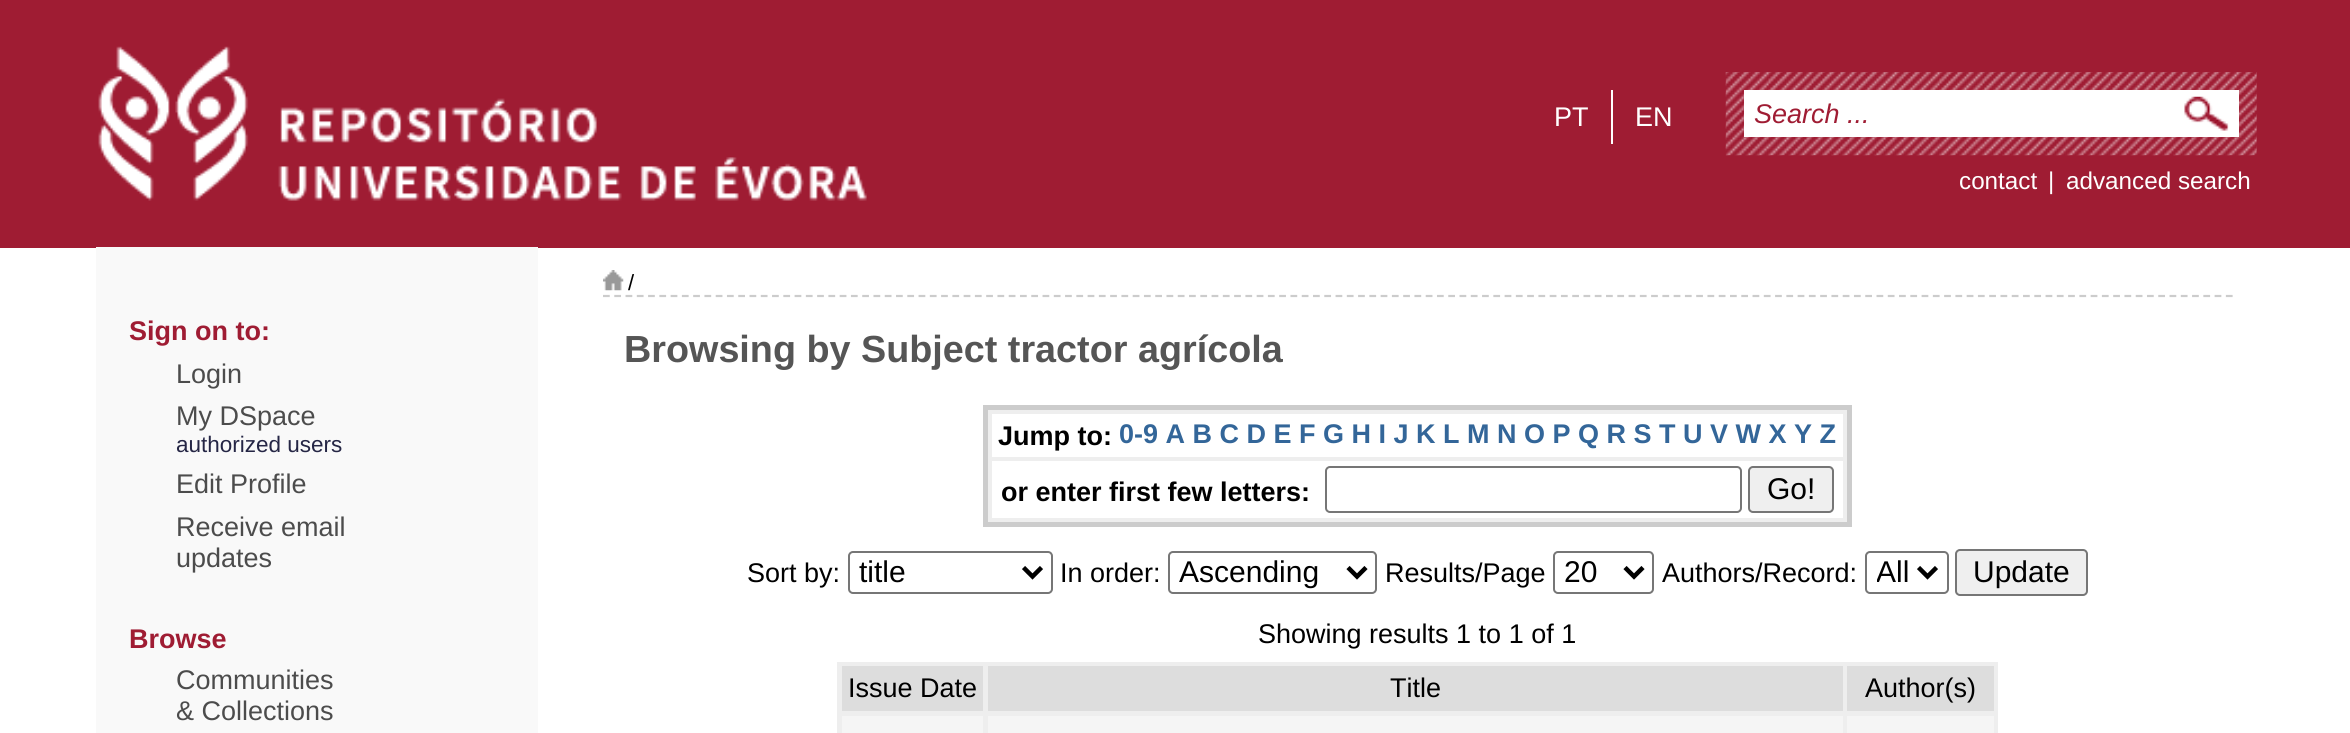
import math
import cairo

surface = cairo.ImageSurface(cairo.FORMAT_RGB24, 2350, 733)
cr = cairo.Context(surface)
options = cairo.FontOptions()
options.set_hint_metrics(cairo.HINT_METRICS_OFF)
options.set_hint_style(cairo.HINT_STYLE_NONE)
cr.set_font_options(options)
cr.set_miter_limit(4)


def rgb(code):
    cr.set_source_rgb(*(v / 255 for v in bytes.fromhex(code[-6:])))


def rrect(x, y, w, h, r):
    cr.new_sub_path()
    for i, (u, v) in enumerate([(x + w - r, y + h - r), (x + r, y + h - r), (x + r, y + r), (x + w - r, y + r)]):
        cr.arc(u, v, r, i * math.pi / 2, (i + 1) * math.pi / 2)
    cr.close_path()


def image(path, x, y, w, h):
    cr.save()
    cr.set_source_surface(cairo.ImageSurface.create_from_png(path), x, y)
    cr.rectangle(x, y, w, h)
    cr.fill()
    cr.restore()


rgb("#ffffff")
cr.paint()
rgb("#9f1c33")
cr.rectangle(0, 0, 2350, 248)
cr.fill()
image("img/1.png", 98, 46, 769, 155)
rgb("#ffffff")
cr.rectangle(1611, 90, 2, 54)
cr.fill()
image("img/2.png", 1725, 72, 532, 84)
cr.rectangle(1744, 90, 495, 47)
cr.fill()
image("img/3.png", 2184, 96, 45, 35)
rgb("#f9f9f9")
cr.rectangle(96, 247, 442, 486)
cr.fill()
cr.new_path()
cr.move_to(603, 296)
cr.line_to(2234, 296)
rgb("#cccccc")
cr.set_line_width(2.2)
cr.set_dash([6.75, 4.52])
cr.stroke()
image("img/4.png", 603, 270, 21, 21)
for x, y, w, h, color in [
    (983, 405, 869, 122, "#cccccc"),
    (988, 410, 859, 112, "#eeeeee"),
    (992, 414, 851, 43, "#ffffff"),
    (992, 461, 851, 57, "#ffffff"),
]:
    rgb(color)
    cr.rectangle(x, y, w, h)
    cr.fill()
rrect(1326, 467, 415, 45, 4)
rgb("#767676")
cr.set_line_width(2)
cr.set_dash([])
cr.stroke()
rgb("#efefef")
rrect(1749, 467, 84, 45, 4)
cr.fill_preserve()
rgb("#767676")
cr.stroke()
rrect(849, 552, 203, 41, 4)
cr.stroke()
cr.new_path()
cr.move_to(1023.5, 567.5)
cr.line_to(1032.5, 576.5)
cr.line_to(1041.5, 567.5)
rgb("#000000")
cr.set_line_width(4.5)
cr.stroke()
rrect(1169, 552, 207, 41, 4)
rgb("#767676")
cr.set_line_width(2)
cr.stroke()
cr.new_path()
cr.move_to(1348, 567.5)
cr.line_to(1357, 576.5)
cr.line_to(1366, 567.5)
rgb("#000000")
cr.set_line_width(4.5)
cr.stroke()
rrect(1554, 552, 99, 41, 4)
rgb("#767676")
cr.set_line_width(2)
cr.stroke()
cr.new_path()
cr.move_to(1625, 567.5)
cr.line_to(1634, 576.5)
cr.line_to(1643, 567.5)
rgb("#000000")
cr.set_line_width(4.5)
cr.stroke()
rrect(1866, 552, 82, 41, 4)
rgb("#767676")
cr.set_line_width(2)
cr.stroke()
cr.new_path()
cr.move_to(1918.5, 567.5)
cr.line_to(1927.5, 576.5)
cr.line_to(1936.5, 567.5)
rgb("#000000")
cr.set_line_width(4.5)
cr.stroke()
rgb("#efefef")
rrect(1956, 550, 131, 45, 4)
cr.fill_preserve()
rgb("#767676")
cr.set_line_width(2)
cr.stroke()
for x, y, w, h, color in [
    (837, 662, 1161, 71, "#eeeeee"),
    (842, 666, 141, 45, "#dddddd"),
    (988, 666, 855, 45, "#dddddd"),
    (1847, 666, 147, 45, "#dddddd"),
    (842, 716, 141, 17, "#f5f5f5"),
    (988, 716, 855, 17, "#f5f5f5"),
    (1847, 716, 147, 17, "#f5f5f5"),
]:
    rgb(color)
    cr.rectangle(x, y, w, h)
    cr.fill()
cr.select_font_face("Liberation Sans")
cr.set_font_size(27)
rgb("#ffffff")
cr.move_to(1554, 126)
cr.show_text("PT")
cr.move_to(1635, 126)
cr.show_text("EN")
cr.select_font_face("Liberation Sans", cairo.FONT_SLANT_ITALIC)
rgb("#9f1c33")
cr.move_to(1754, 123)
cr.show_text("Search ...")
cr.select_font_face("Liberation Sans")
cr.set_font_size(24.25)
rgb("#ffffff")
for x, y, s in [
    (1959, 189, "contact"),
    (2048, 189, "|"),
    (2066, 189, "advanced search"),
]:
    cr.move_to(x, y)
    cr.show_text(s)
cr.select_font_face("Liberation Sans", cairo.FONT_SLANT_NORMAL, cairo.FONT_WEIGHT_BOLD)
cr.set_font_size(27)
rgb("#9f1c33")
cr.move_to(129, 340)
cr.show_text("Sign on to:")
cr.select_font_face("Liberation Sans")
rgb("#4c4c4c")
cr.move_to(176, 383)
cr.show_text("Login")
cr.move_to(176, 425)
cr.show_text("My DSpace")
cr.set_font_size(22.5)
rgb("#252645")
cr.move_to(176, 452)
cr.show_text("authorized users")
cr.set_font_size(27)
rgb("#4c4c4c")
for x, y, s in [
    (176, 493, "Edit Profile"),
    (176, 536, "Receive email"),
    (176, 567, "updates"),
]:
    cr.move_to(x, y)
    cr.show_text(s)
cr.select_font_face("Liberation Sans", cairo.FONT_SLANT_NORMAL, cairo.FONT_WEIGHT_BOLD)
rgb("#9f1c33")
cr.move_to(129, 648)
cr.show_text("Browse")
cr.select_font_face("Liberation Sans")
rgb("#4c4c4c")
cr.move_to(176, 689)
cr.show_text("Communities")
cr.move_to(176, 720)
cr.show_text("& Collections")
cr.set_font_size(22)
rgb("#000000")
cr.move_to(628, 290)
cr.show_text("/")
cr.select_font_face("Liberation Sans", cairo.FONT_SLANT_NORMAL, cairo.FONT_WEIGHT_BOLD)
cr.set_font_size(37.75)
rgb("#555555")
cr.move_to(624, 362)
cr.show_text("Browsing by Subject tractor agrícola")
cr.set_font_size(27)
rgb("#000000")
cr.move_to(998, 445)
cr.show_text("Jump to:")
rgb("#336699")
cr.move_to(1119, 443)
cr.show_text("0-9 A B C D E F G H I J K L M N O P Q R S T U V W X Y Z")
rgb("#000000")
cr.move_to(1001, 501)
cr.show_text("or enter first few letters:")
cr.select_font_face("Liberation Sans")
cr.set_font_size(30)
cr.move_to(1767, 499)
cr.show_text("Go!")
cr.set_font_size(27)
cr.move_to(747, 582)
cr.show_text("Sort by:")
cr.set_font_size(30)
cr.move_to(859, 582)
cr.show_text("title")
cr.set_font_size(27)
cr.move_to(1060, 582)
cr.show_text("In order:")
cr.set_font_size(30)
cr.move_to(1179, 582)
cr.show_text("Ascending")
cr.set_font_size(27)
cr.move_to(1385, 582)
cr.show_text("Results/Page")
cr.set_font_size(30)
cr.move_to(1564, 582)
cr.show_text("20")
cr.set_font_size(27)
cr.move_to(1662, 582)
cr.show_text("Authors/Record:")
cr.save()
cr.rectangle(1877, 554, 33, 38)
cr.clip()
cr.set_font_size(30)
cr.move_to(1876, 582)
cr.show_text("All")
cr.restore()
cr.set_font_size(30)
cr.move_to(1973, 582)
cr.show_text("Update")
cr.set_font_size(27)
for x, y, s in [
    (1258, 643, "Showing results 1 to 1 of 1"),
    (848, 697, "Issue Date"),
    (1390, 697, "Title"),
    (1865, 697, "Author(s)"),
]:
    cr.move_to(x, y)
    cr.show_text(s)
surface.write_to_png("page.png")
